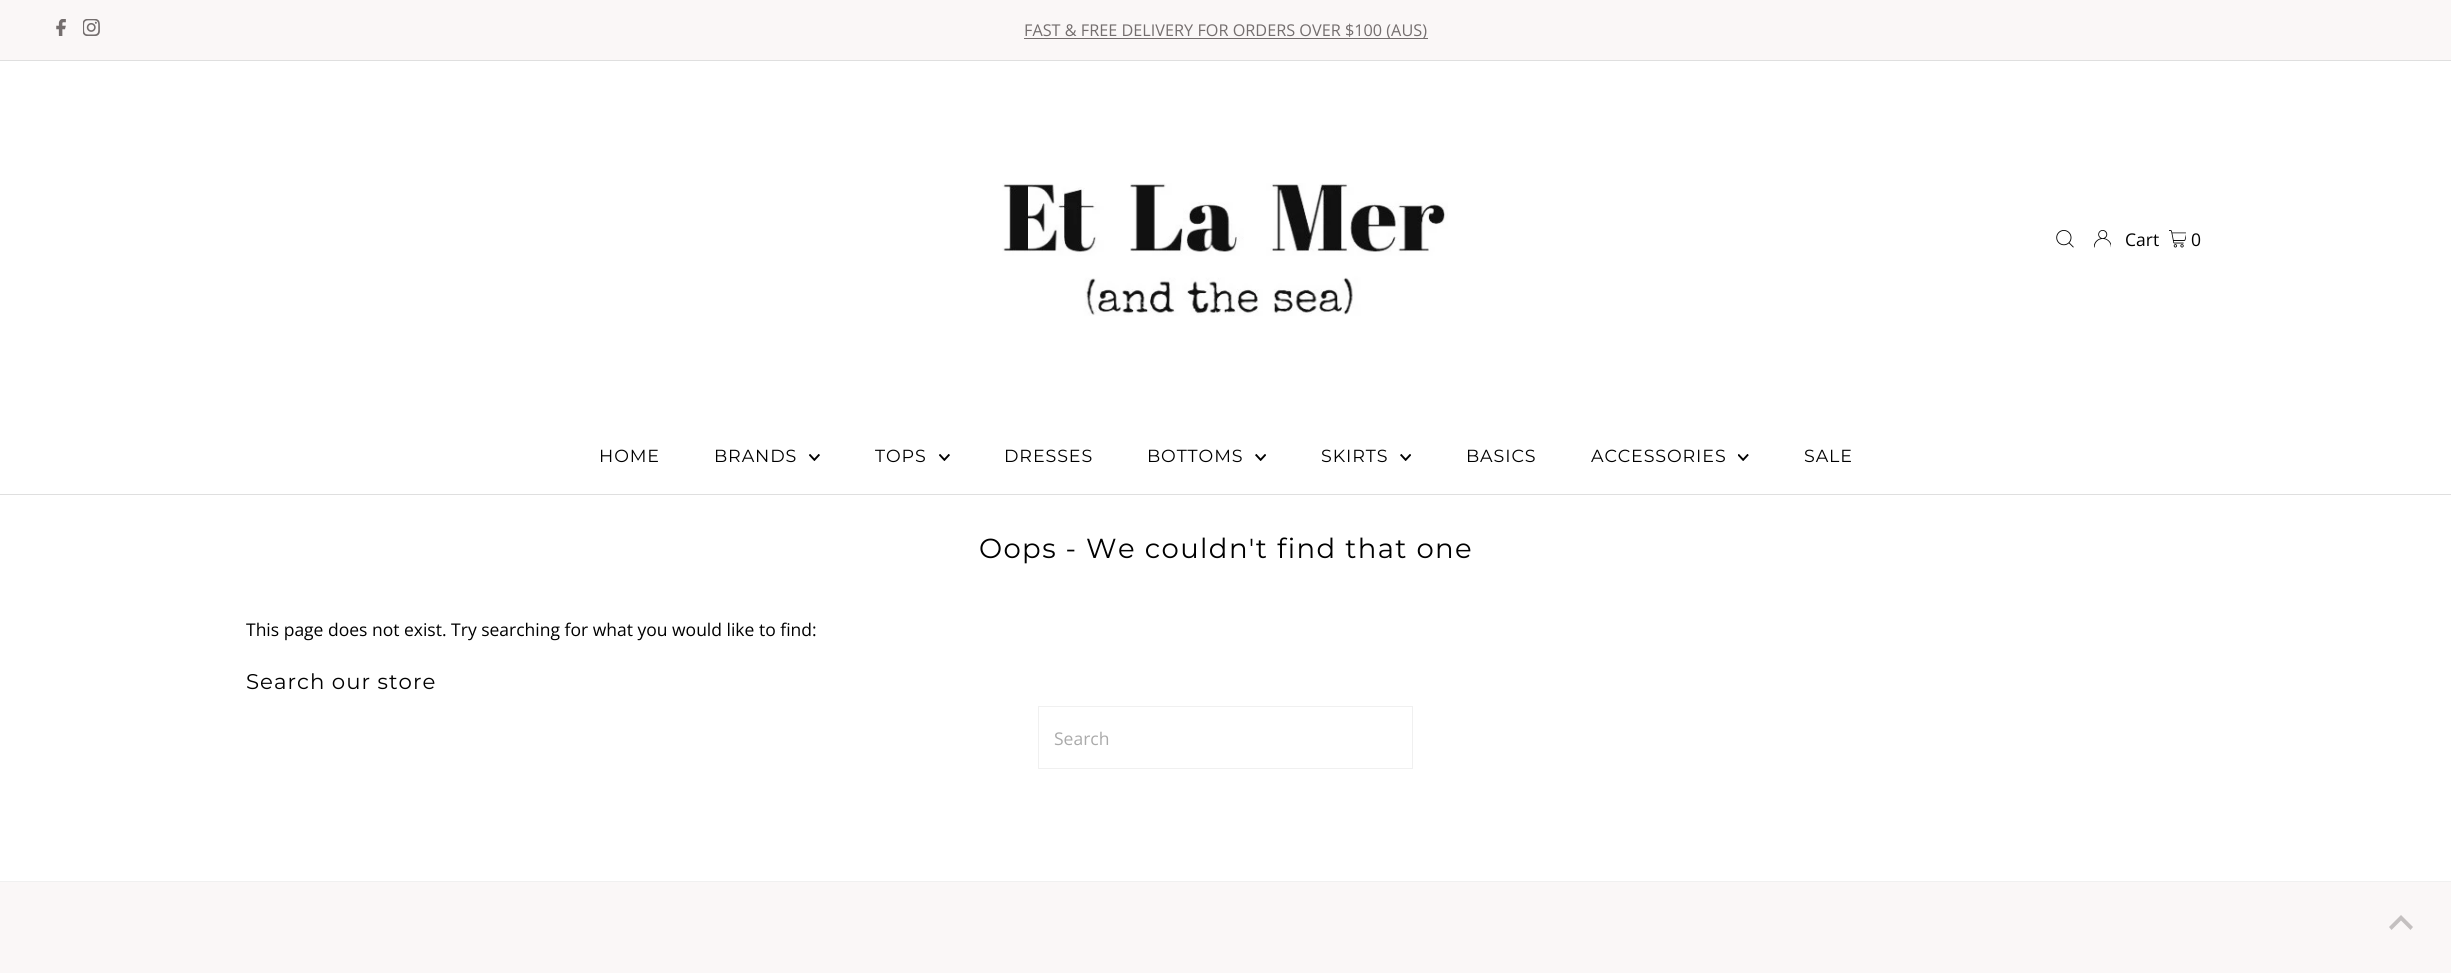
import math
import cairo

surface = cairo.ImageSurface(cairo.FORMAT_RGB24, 2451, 973)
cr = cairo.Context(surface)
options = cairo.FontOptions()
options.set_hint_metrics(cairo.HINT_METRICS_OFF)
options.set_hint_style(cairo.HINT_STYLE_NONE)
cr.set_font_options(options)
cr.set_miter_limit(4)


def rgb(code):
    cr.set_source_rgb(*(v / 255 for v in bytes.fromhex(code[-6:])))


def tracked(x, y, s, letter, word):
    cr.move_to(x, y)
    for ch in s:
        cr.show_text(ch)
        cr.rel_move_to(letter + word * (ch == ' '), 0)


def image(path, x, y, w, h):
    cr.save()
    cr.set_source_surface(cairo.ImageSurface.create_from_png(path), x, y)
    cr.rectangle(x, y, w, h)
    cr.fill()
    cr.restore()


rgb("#ffffff")
cr.paint()
rgb("#faf7f7")
cr.rectangle(0, 0, 2451, 60)
cr.fill()
image("img/1.png", 56, 19, 10, 17)
image("img/2.png", 83, 19, 17, 17)
for x, y, w, h, color in [
    (1024, 38, 404, 1, "#746e6e"),
    (0, 60, 2451, 1, "#dfdfdf"),
    (0, 494, 2451, 1, "#dfdfdf"),
]:
    rgb(color)
    cr.rectangle(x, y, w, h)
    cr.fill()
image("img/3.png", 1002, 183, 446, 133)
image("img/4.png", 2056, 230, 18, 18)
image("img/5.png", 2094, 230, 17, 18)
image("img/6.png", 2169, 230, 17, 18)
image("img/7.png", 809, 454, 11, 7)
image("img/7.png", 939, 454, 11, 7)
image("img/8.png", 1255, 454, 11, 7)
image("img/8.png", 1400, 454, 11, 7)
image("img/9.png", 1738, 454, 11, 7)
cr.rectangle(1038.5, 706.5, 374, 62)
rgb("#f0f0f0")
cr.set_line_width(1)
cr.stroke()
rgb("#faf7f7")
cr.rectangle(0, 882, 2451, 91)
cr.fill()
rgb("#f0f0f0")
cr.rectangle(0, 881, 2451, 1)
cr.fill()
rgb("#c4c0c0")
cr.new_path()
cr.move_to(2401, 915)
cr.line_to(2389, 927)
cr.line_to(2391.5, 930)
cr.line_to(2401, 920.5)
cr.line_to(2410.5, 930)
cr.line_to(2413, 927)
cr.close_path()
cr.fill()
cr.select_font_face("Open Sans")
cr.set_font_size(16.25)
rgb("#746e6e")
cr.move_to(1024, 36)
cr.show_text("FAST & FREE DELIVERY FOR ORDERS OVER $100 (AUS)")
cr.set_font_size(17.5)
rgb("#000000")
cr.move_to(2125, 246)
cr.show_text("Cart")
cr.move_to(2191, 246)
cr.show_text("0")
cr.select_font_face("Montserrat")
for x, y, s in [
    (599, 462, "HOME"),
    (714, 462, "BRANDS"),
    (875, 462, "TOPS"),
    (1004, 462, "DRESSES"),
    (1147, 462, "BOTTOMS"),
    (1321, 462, "SKIRTS"),
    (1466, 462, "BASICS"),
    (1591, 462, "ACCESSORIES"),
    (1804, 462, "SALE"),
]:
    tracked(x, y, s, 0.9, 0)
cr.set_font_size(27.5)
tracked(979, 558, "Oops - We couldn't find that one", 1.4, 0)
cr.select_font_face("Open Sans")
cr.set_font_size(17.5)
cr.move_to(246, 636)
cr.show_text("This page does not exist. Try searching for what you would like to find:")
cr.select_font_face("Montserrat")
cr.set_font_size(21.25)
tracked(246, 689, "Search our store", 1, 0)
cr.select_font_face("Open Sans")
cr.set_font_size(17.5)
rgb("#aaaaaa")
cr.move_to(1054, 745)
cr.show_text("Search")
surface.write_to_png("page.png")
